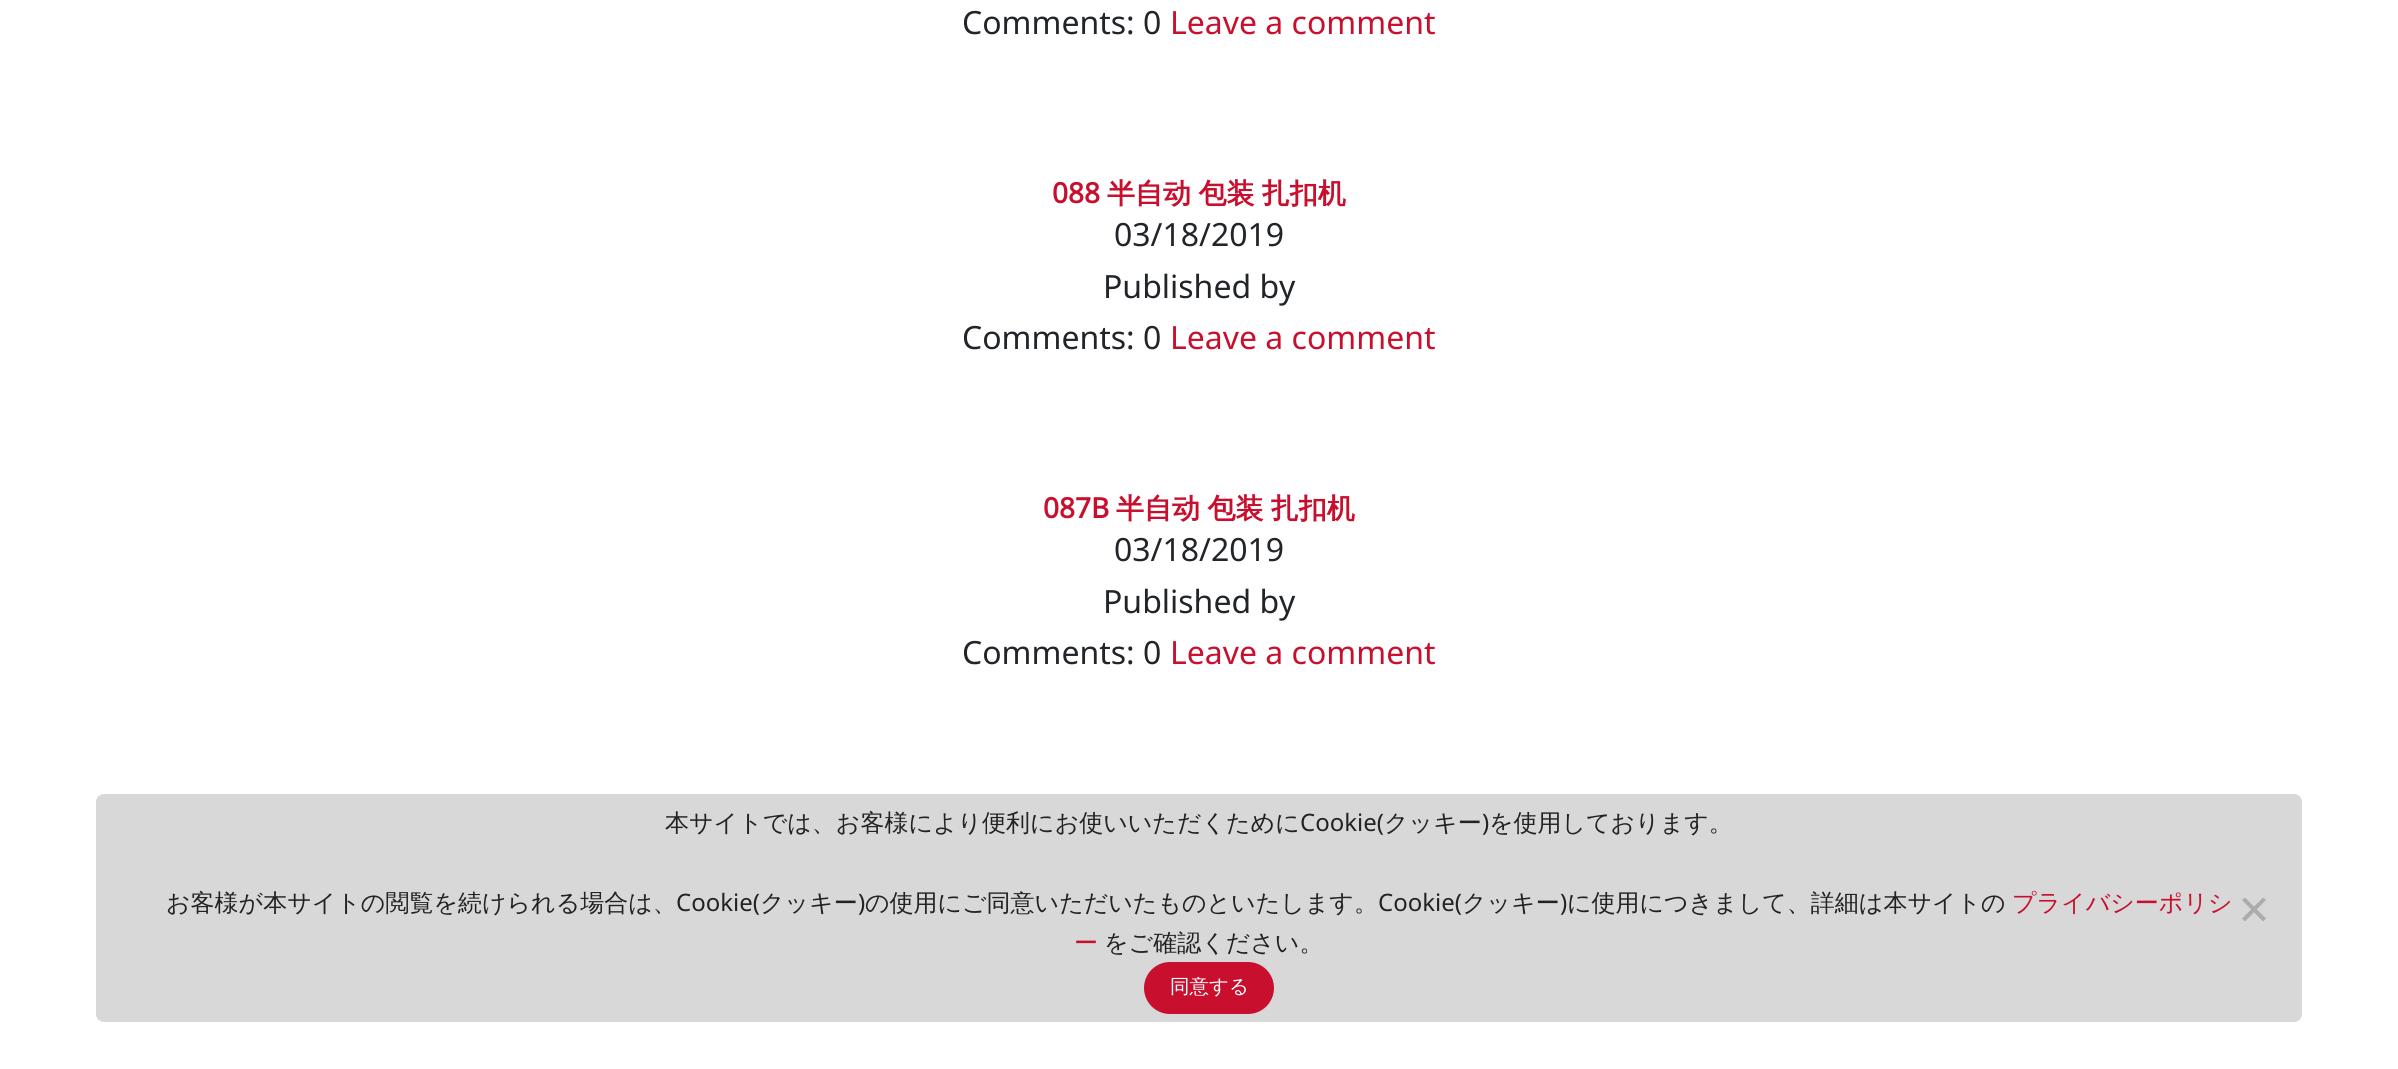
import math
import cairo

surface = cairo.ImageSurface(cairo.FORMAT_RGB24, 2398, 1069)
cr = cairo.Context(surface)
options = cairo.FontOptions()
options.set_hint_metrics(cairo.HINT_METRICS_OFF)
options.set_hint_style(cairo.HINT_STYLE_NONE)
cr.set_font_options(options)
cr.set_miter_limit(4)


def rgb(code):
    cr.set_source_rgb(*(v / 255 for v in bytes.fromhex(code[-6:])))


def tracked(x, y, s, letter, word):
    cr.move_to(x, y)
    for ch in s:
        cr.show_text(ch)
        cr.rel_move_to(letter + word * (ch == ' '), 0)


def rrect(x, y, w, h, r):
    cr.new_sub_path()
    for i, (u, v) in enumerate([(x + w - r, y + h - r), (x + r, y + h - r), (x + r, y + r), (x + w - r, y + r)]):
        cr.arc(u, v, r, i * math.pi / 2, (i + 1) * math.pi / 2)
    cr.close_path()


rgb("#ffffff")
cr.paint()
rgb("#d8d8d8")
rrect(96, 794, 2206, 228, 8)
cr.fill()
rgb("#acacac")
cr.new_path()
cr.move_to(2263, 897.5)
cr.line_to(2266, 900)
cr.line_to(2245, 921.5)
cr.line_to(2242, 918.5)
cr.close_path()
cr.fill()
cr.new_path()
cr.move_to(2242, 900)
cr.line_to(2245, 897.5)
cr.line_to(2266, 918.5)
cr.line_to(2263, 921.5)
cr.close_path()
cr.fill()
rgb("#c8102e")
rrect(1145, 963, 128, 50, 25)
cr.fill_preserve()
cr.stroke()
cr.select_font_face("Noto Sans")
cr.set_font_size(32)
rgb("#212529")
cr.move_to(962, 34)
cr.show_text("Comments: 0")
rgb("#c8102e")
cr.move_to(1170, 34)
cr.show_text("Leave a comment")
cr.select_font_face("Noto Sans", cairo.FONT_SLANT_NORMAL, cairo.FONT_WEIGHT_BOLD)
cr.set_font_size(28)
cr.move_to(1052, 203)
cr.show_text("088")
cr.select_font_face("WenQuanYi Zen Hei", cairo.FONT_SLANT_NORMAL, cairo.FONT_WEIGHT_BOLD)
tracked(1107, 203, "半自动 包装 扎扣机", 0, -1)
cr.select_font_face("Noto Sans")
cr.set_font_size(32)
rgb("#212529")
for x, y, s in [
    (1114, 246, "03/18/2019"),
    (1103, 298, "Published by"),
    (962, 349, "Comments: 0"),
]:
    cr.move_to(x, y)
    cr.show_text(s)
rgb("#c8102e")
cr.move_to(1170, 349)
cr.show_text("Leave a comment")
cr.select_font_face("Noto Sans", cairo.FONT_SLANT_NORMAL, cairo.FONT_WEIGHT_BOLD)
cr.set_font_size(28)
cr.move_to(1043, 518)
cr.show_text("087B")
cr.select_font_face("WenQuanYi Zen Hei", cairo.FONT_SLANT_NORMAL, cairo.FONT_WEIGHT_BOLD)
tracked(1116, 518, "半自动 包装 扎扣机", 0, -1)
cr.select_font_face("Noto Sans")
cr.set_font_size(32)
rgb("#212529")
for x, y, s in [
    (1114, 561, "03/18/2019"),
    (1103, 613, "Published by"),
    (962, 664, "Comments: 0"),
]:
    cr.move_to(x, y)
    cr.show_text(s)
rgb("#c8102e")
cr.move_to(1170, 664)
cr.show_text("Leave a comment")
cr.select_font_face("WenQuanYi Zen Hei Medium")
cr.set_font_size(24)
rgb("#222222")
cr.move_to(665, 831)
cr.show_text("本サイトでは、お客様により便利にお使いいただくために")
cr.select_font_face("Noto Sans")
cr.move_to(1300, 831)
cr.show_text("Cookie(")
cr.select_font_face("WenQuanYi Zen Hei Medium")
cr.move_to(1384, 831)
cr.show_text("クッキー を使用しております。")
cr.select_font_face("Noto Sans")
cr.move_to(1482, 831)
cr.show_text(")")
cr.select_font_face("WenQuanYi Zen Hei Medium")
cr.move_to(166, 911)
cr.show_text("お客様が本サイトの閲覧を続けられる場合は、")
cr.select_font_face("Noto Sans")
cr.move_to(676, 911)
cr.show_text("Cookie(")
cr.select_font_face("WenQuanYi Zen Hei Medium")
cr.move_to(760, 911)
cr.show_text("クッキー の使用にご同意いただいたものといたします。")
cr.select_font_face("Noto Sans")
cr.move_to(1378, 911)
cr.show_text("Cookie(")
cr.select_font_face("WenQuanYi Zen Hei Medium")
cr.move_to(1462, 911)
cr.show_text("クッキー に使用につきまして、詳細は本サイトの")
rgb("#c8102e")
cr.move_to(2012, 911)
cr.show_text("プライバシーポリシ")
cr.select_font_face("Noto Sans")
rgb("#222222")
cr.move_to(858, 911)
cr.show_text(")")
cr.move_to(1560, 911)
cr.show_text(")")
cr.select_font_face("WenQuanYi Zen Hei Medium")
rgb("#c8102e")
cr.move_to(1074, 951)
cr.show_text("ー")
rgb("#222222")
cr.move_to(1104, 951)
cr.show_text("をご確認ください。")
cr.set_font_size(19.5)
rgb("#ffffff")
cr.move_to(1170, 993)
cr.show_text("同意する")
surface.write_to_png("page.png")
